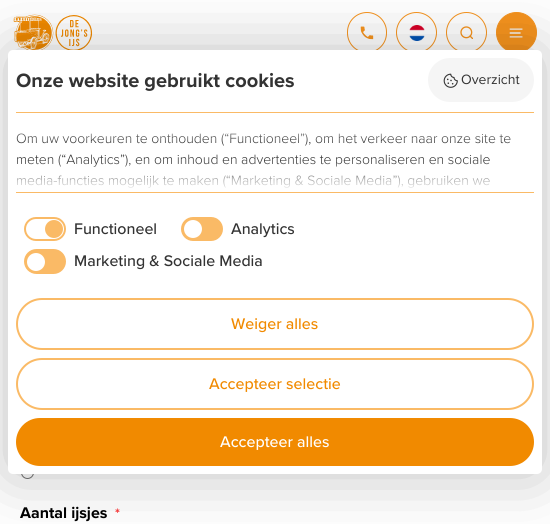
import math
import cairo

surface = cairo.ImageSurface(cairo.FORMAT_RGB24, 550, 524)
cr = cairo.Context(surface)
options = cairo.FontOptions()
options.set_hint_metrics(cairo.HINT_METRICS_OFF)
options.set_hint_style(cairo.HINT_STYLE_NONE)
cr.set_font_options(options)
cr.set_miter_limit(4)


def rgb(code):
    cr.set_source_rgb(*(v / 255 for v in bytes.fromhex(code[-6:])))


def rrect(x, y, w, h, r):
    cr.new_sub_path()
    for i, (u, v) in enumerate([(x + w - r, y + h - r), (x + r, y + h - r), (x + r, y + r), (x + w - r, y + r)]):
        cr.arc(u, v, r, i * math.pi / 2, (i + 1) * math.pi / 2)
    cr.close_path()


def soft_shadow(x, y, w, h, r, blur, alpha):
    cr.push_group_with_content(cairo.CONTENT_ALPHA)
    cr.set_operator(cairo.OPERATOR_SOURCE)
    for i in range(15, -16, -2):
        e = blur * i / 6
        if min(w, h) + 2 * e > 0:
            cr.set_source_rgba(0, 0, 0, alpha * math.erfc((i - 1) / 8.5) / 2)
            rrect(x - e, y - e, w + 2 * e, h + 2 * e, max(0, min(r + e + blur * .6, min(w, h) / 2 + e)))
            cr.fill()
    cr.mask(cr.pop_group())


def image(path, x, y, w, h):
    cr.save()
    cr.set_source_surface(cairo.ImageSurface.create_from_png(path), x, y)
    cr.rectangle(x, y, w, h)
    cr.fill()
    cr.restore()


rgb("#ffffff")
cr.paint()
image("img/1.png", 13, 14, 80, 36)
rrect(347.5, 12.5, 39, 40, 19.5)
rgb("#f7941e")
cr.set_line_width(1)
cr.stroke()
image("img/2.png", 360, 26, 14, 14)
cr.arc(416.5, 32.5, 20, 0, 2 * math.pi)
cr.stroke()
image("img/3.png", 409, 25, 16, 16)
cr.arc(466.5, 32.5, 20, 0, 2 * math.pi)
cr.stroke()
image("img/4.png", 460, 26, 13, 13)
cr.arc(516.5, 32.5, 20, 0, 2 * math.pi)
cr.fill_preserve()
cr.stroke()
image("img/5.png", 509, 28, 14, 10)
cr.arc(27.5, 472.5, 6, 0, 2 * math.pi)
rgb("#767676")
cr.stroke()
rgb("#000000")
soft_shadow(8, 50, 534, 424, 5, 32, 0.25)
rgb("#ffffff")
rrect(8, 50, 534, 424, 5)
cr.fill()
rgb("#f5f5f5")
rrect(428, 58, 106, 44, 22)
cr.fill()
image("img/6.png", 443, 73, 15, 15)
rgb("#faba66")
cr.rectangle(16, 112, 518, 1)
cr.fill()
cr.rectangle(16, 192, 518, 1)
cr.fill()
rrect(25, 218, 40, 22, 11)
cr.set_line_width(2)
cr.stroke()
cr.arc(54, 229, 9, 0, 2 * math.pi)
cr.fill()
rrect(182, 218, 40, 22, 11)
cr.fill_preserve()
cr.stroke()
rgb("#ffffff")
cr.arc(193, 229, 9, 0, 2 * math.pi)
cr.fill()
rgb("#faba66")
rrect(25, 250, 40, 23, 11.5)
cr.fill_preserve()
cr.stroke()
rgb("#ffffff")
cr.arc(36, 262, 9, 0, 2 * math.pi)
cr.fill()
rrect(17, 299, 516, 50, 25)
rgb("#faba66")
cr.stroke()
rrect(17, 359, 516, 50, 25)
cr.stroke()
rgb("#f18a00")
rrect(16, 418, 518, 48, 24)
cr.fill()
cr.select_font_face("Proxima Nova", cairo.FONT_SLANT_NORMAL, cairo.FONT_WEIGHT_BOLD)
cr.set_font_size(20)
rgb("#333333")
cr.move_to(16, 87)
cr.show_text("Onze website gebruikt cookies")
cr.select_font_face("Proxima Nova")
cr.set_font_size(14)
cr.move_to(461, 84)
cr.show_text("Overzicht")
cr.select_font_face("Proxima Nova Light")
for x, y, s in [
    (16, 143, "Om uw voorkeuren te onthouden (“Functioneel”), om het verkeer naar onze site te"),
    (16, 164, "meten (“Analytics”), en om inhoud en advertenties te personaliseren en sociale"),
    (16, 185, "media-functies mogelijk te maken (“Marketing & Sociale Media”), gebruiken we"),
]:
    cr.move_to(x, y)
    cr.show_text(s)
gradient = cairo.LinearGradient(275, 142, 275, 112)
gradient.add_color_stop_rgba(0, 1, 1, 1, 0)
gradient.add_color_stop_rgba(1, 1, 1, 1, 1)
cr.set_source(gradient)
cr.rectangle(16, 133, 495, 8)
cr.fill()
gradient = cairo.LinearGradient(275, 162, 275, 192)
gradient.add_color_stop_rgba(0, 1, 1, 1, 0)
gradient.add_color_stop_rgba(1, 1, 1, 1, 1)
cr.set_source(gradient)
cr.rectangle(17, 163, 473, 25)
cr.fill()
cr.select_font_face("Proxima Nova Medium")
cr.set_font_size(16)
rgb("#333333")
for x, y, s in [
    (74, 234, "Functioneel"),
    (231, 234, "Analytics"),
    (74, 266, "Marketing & Sociale Media"),
]:
    cr.move_to(x, y)
    cr.show_text(s)
rgb("#f18a00")
cr.move_to(231, 329)
cr.show_text("Weiger alles")
cr.move_to(209, 389)
cr.show_text("Accepteer selectie")
rgb("#ffffff")
cr.move_to(220, 447)
cr.show_text("Accepteer alles")
cr.select_font_face("Proxima Nova", cairo.FONT_SLANT_NORMAL, cairo.FONT_WEIGHT_BOLD)
rgb("#000000")
cr.move_to(20, 518)
cr.show_text("Aantal ijsjes")
cr.set_font_size(14)
rgb("#f43838")
cr.move_to(115, 518)
cr.show_text("*")
surface.write_to_png("page.png")
